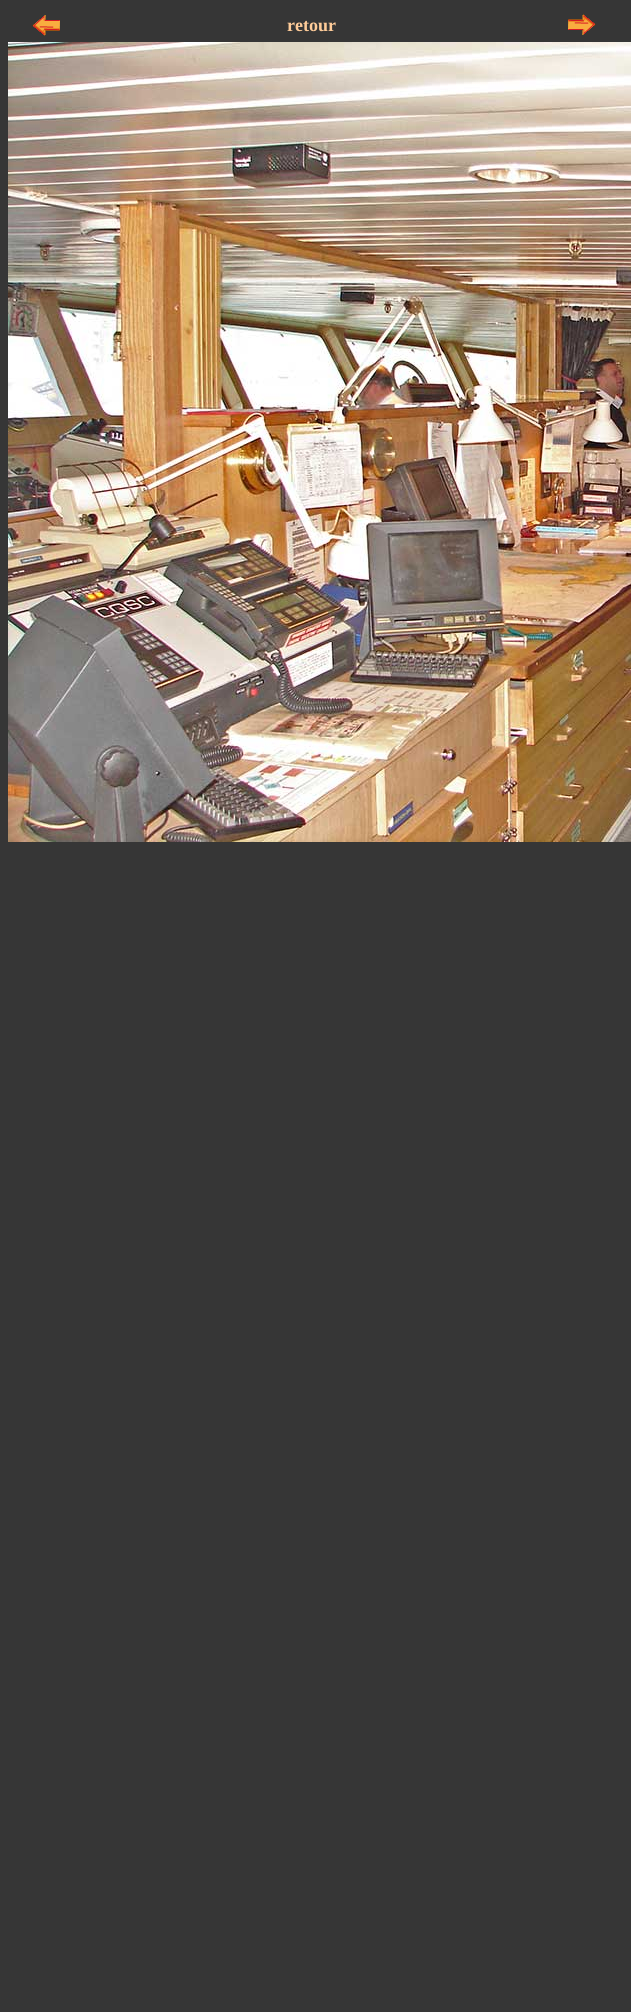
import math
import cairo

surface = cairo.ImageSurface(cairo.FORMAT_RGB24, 631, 2012)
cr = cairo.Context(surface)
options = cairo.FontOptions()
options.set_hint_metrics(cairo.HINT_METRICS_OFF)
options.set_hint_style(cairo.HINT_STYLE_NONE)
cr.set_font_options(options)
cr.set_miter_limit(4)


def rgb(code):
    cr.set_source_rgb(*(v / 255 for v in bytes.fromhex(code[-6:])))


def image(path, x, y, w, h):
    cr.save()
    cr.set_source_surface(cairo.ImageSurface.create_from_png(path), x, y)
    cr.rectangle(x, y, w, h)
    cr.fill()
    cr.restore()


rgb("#363636")
cr.paint()
image("img/1.png", 32, 15, 28, 21)
image("img/2.png", 568, 14, 28, 21)
image("img/3.png", 8, 42, 623, 800)
cr.select_font_face("Liberation Serif", cairo.FONT_SLANT_NORMAL, cairo.FONT_WEIGHT_BOLD)
cr.set_font_size(18)
rgb("#ffcc99")
cr.move_to(287, 31)
cr.show_text("retour")
surface.write_to_png("page.png")
